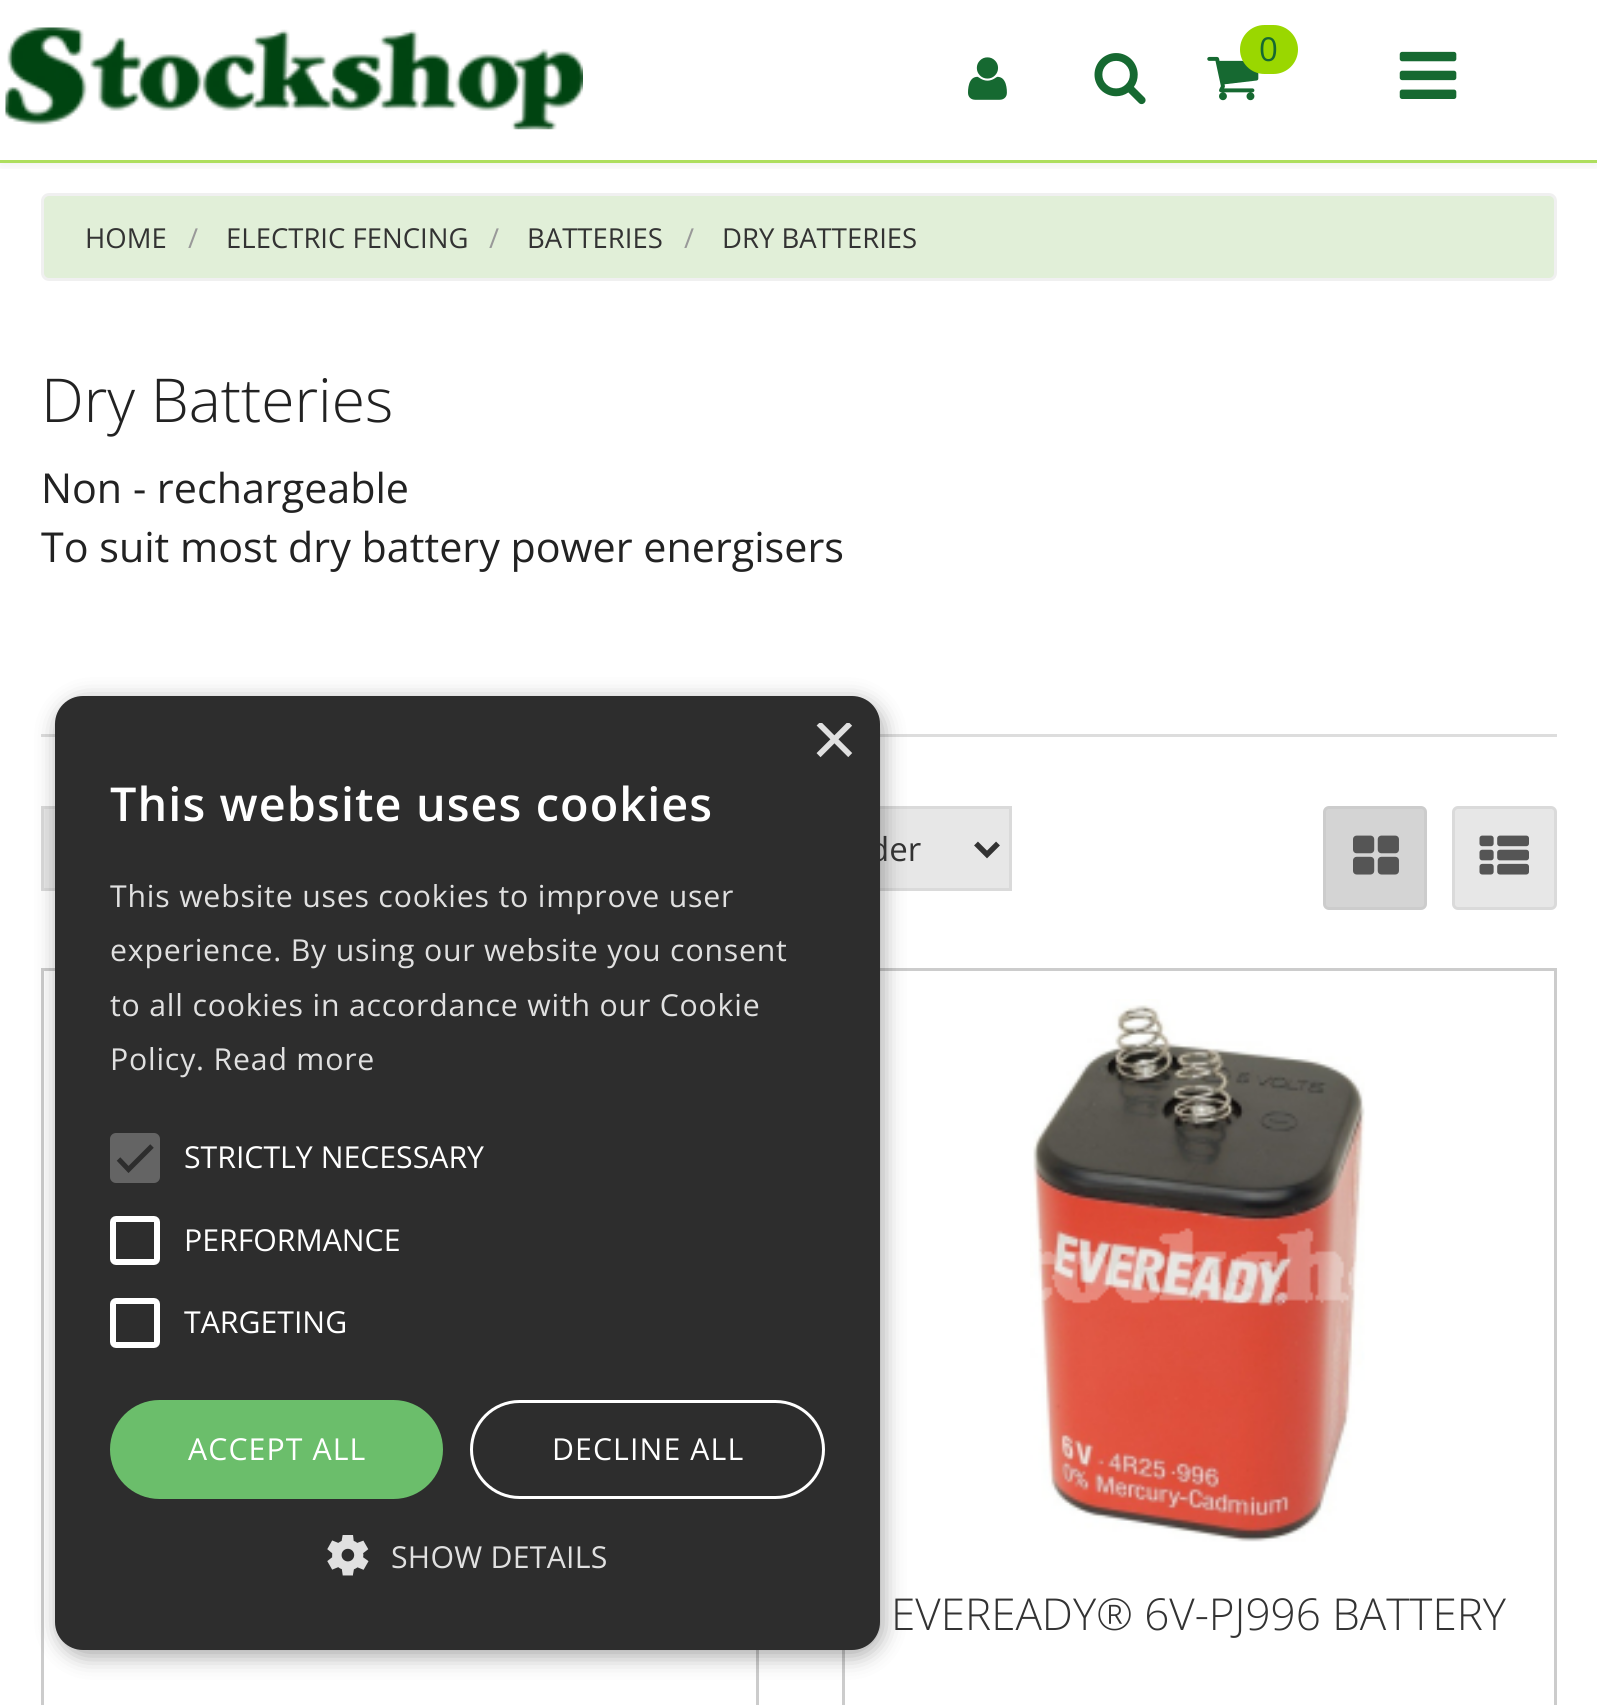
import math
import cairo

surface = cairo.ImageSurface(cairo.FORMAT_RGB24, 1597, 1705)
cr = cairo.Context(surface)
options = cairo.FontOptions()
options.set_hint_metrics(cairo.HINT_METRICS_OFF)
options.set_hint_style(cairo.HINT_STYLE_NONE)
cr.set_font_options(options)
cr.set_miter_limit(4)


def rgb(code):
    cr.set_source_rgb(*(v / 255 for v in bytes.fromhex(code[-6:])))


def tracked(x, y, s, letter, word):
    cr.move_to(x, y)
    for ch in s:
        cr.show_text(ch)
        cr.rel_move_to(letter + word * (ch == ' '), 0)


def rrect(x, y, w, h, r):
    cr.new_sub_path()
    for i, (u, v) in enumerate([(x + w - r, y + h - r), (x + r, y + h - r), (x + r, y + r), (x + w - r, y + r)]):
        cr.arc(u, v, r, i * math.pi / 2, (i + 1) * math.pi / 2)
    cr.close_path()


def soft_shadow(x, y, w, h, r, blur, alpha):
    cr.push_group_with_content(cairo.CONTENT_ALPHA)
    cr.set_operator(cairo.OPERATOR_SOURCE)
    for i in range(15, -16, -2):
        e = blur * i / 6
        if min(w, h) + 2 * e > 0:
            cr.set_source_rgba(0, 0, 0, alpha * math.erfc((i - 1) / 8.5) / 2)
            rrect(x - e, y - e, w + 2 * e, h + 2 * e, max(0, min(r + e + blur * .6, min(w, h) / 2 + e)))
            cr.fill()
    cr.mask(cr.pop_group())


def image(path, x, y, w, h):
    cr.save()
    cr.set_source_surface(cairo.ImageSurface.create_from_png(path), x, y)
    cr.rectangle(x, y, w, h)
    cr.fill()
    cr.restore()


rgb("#ffffff")
cr.paint()
cr.save()
cr.rectangle(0, 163, 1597, 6)
cr.clip()
rgb("#000000")
soft_shadow(0, 3, 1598, 162, 0, 7, 0.07)
cr.restore()
rgb("#aede5e")
cr.rectangle(0, 160, 1597, 3)
cr.fill()
image("img/1.png", 5, 27, 578, 103)
image("img/2.png", 968, 57, 39, 43)
image("img/3.png", 1094, 53, 52, 52)
image("img/4.png", 1207, 56, 52, 45)
rgb("#9ad700")
rrect(1240, 25, 58, 49, 24.5)
cr.fill()
image("img/5.png", 1399, 51, 58, 48)
rgb("#e1efd8")
rrect(42.5, 194.5, 1513, 85, 6.5)
cr.fill_preserve()
rgb("#f0f0f0")
cr.set_line_width(3)
cr.stroke()
rgb("#dddddd")
cr.rectangle(41, 734, 1516, 3)
cr.fill()
rgb("#e7e7e7")
cr.rectangle(44, 809, 11, 79)
cr.fill()
cr.rectangle(42.5, 807.5, 407, 82)
rgb("#dadada")
cr.stroke()
rgb("#e7e7e7")
cr.rectangle(880, 809, 129, 79)
cr.fill()
cr.rectangle(493.5, 807.5, 517, 82)
rgb("#dadada")
cr.stroke()
cr.new_path()
cr.move_to(976, 843.5)
cr.line_to(987, 854.5)
cr.line_to(998, 843.5)
rgb("#333333")
cr.set_line_width(5.5)
cr.stroke()
rgb("#d4d4d4")
rrect(1324.5, 807.5, 101, 101, 4.5)
cr.fill_preserve()
rgb("#cccccc")
cr.set_line_width(3)
cr.stroke()
image("img/6.png", 1353, 835, 46, 40)
rgb("#e7e7e7")
rrect(1453.5, 807.5, 102, 101, 4.5)
cr.fill_preserve()
rgb("#dadada")
cr.stroke()
image("img/7.png", 1479, 835, 50, 40)
cr.rectangle(42.5, 969.5, 715, 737)
rgb("#cccccc")
cr.stroke()
cr.rectangle(843.5, 969.5, 712, 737)
cr.stroke()
image("img/8.png", 1030, 999, 335, 543)
rgb("#000000")
soft_shadow(58, 701, 825, 955, 28, 11, 0.35)
cr.select_font_face("Open Sans")
cr.set_font_size(33)
rgb("#166931")
cr.move_to(1259, 61)
cr.show_text("0")
cr.set_font_size(27.5)
rgb("#333333")
cr.move_to(85, 248)
cr.show_text("HOME")
rgb("#999999")
cr.move_to(188, 248)
cr.show_text("/")
rgb("#333333")
cr.move_to(226, 248)
cr.show_text("ELECTRIC FENCING")
rgb("#999999")
cr.move_to(489, 248)
cr.show_text("/")
rgb("#333333")
cr.move_to(527, 248)
cr.show_text("BATTERIES")
rgb("#999999")
cr.move_to(684, 248)
cr.show_text("/")
rgb("#333333")
cr.move_to(722, 248)
cr.show_text("DRY BATTERIES")
cr.select_font_face("Open Sans Light")
cr.set_font_size(60.5)
rgb("#222222")
cr.move_to(41, 422)
cr.show_text("Dry Batteries")
cr.select_font_face("Open Sans")
cr.set_font_size(41.25)
cr.move_to(41, 503)
cr.show_text("Non - rechargeable")
cr.move_to(41, 562)
cr.show_text("To suit most dry battery power energisers")
cr.set_font_size(33)
rgb("#333333")
cr.move_to(869, 861)
cr.show_text("der")
cr.select_font_face("Open Sans Light")
cr.set_font_size(44)
cr.move_to(891, 1630)
cr.show_text("EVEREADY® 6V-PJ996 BATTERY")
rgb("#2d2d2d")
rrect(55, 696, 825, 954, 28)
cr.fill()
cr.save()
cr.rectangle(811, 723, 42, 42)
cr.clip()
cr.select_font_face("Liberation Sans")
cr.set_font_size(80)
rgb("#e0e0e0")
cr.move_to(811, 766)
cr.show_text("×")
cr.restore()
cr.select_font_face("Open Sans SemiBold")
cr.set_font_size(46.75)
rgb("#ffffff")
tracked(110, 821, "This website uses cookies", 1.1, 0)
cr.select_font_face("Open Sans")
cr.set_font_size(30.25)
rgb("#e0e0e0")
for x, y, s in [
    (110, 907, "This website uses cookies to improve user"),
    (110, 961, "experience. By using our website you consent"),
    (110, 1016, "to all cookies in accordance with our Cookie"),
    (110, 1070, "Policy. Read more"),
]:
    tracked(x, y, s, 0.8, 0)
rgb("#646464")
rrect(110, 1133, 50, 50, 6)
cr.fill()
cr.new_path()
cr.move_to(118.5, 1159)
cr.line_to(128.5, 1169.5)
cr.line_to(152, 1146)
rgb("#2d2d2d")
cr.set_line_width(5)
cr.stroke()
rgb("#ffffff")
cr.move_to(184, 1168)
cr.show_text("STRICTLY NECESSARY")
rrect(113, 1219, 44, 43, 3)
cr.set_line_width(6)
cr.stroke()
cr.move_to(184, 1251)
cr.show_text("PERFORMANCE")
rrect(113, 1301, 44, 44, 3)
cr.stroke()
cr.move_to(184, 1333)
cr.show_text("TARGETING")
rgb("#6bbe6b")
rrect(110, 1400, 333, 99, 49.5)
cr.fill()
rgb("#ffffff")
tracked(188, 1460, "ACCEPT ALL", 1.1, 0)
rrect(471.5, 1401.5, 352, 96, 48)
cr.set_line_width(3)
cr.stroke()
tracked(552, 1460, "DECLINE ALL", 1.1, 0)
image("img/9.png", 327, 1535, 42, 41)
rgb("#e0e0e0")
tracked(391, 1568, "SHOW DETAILS", 0.25, 0)
surface.write_to_png("page.png")
